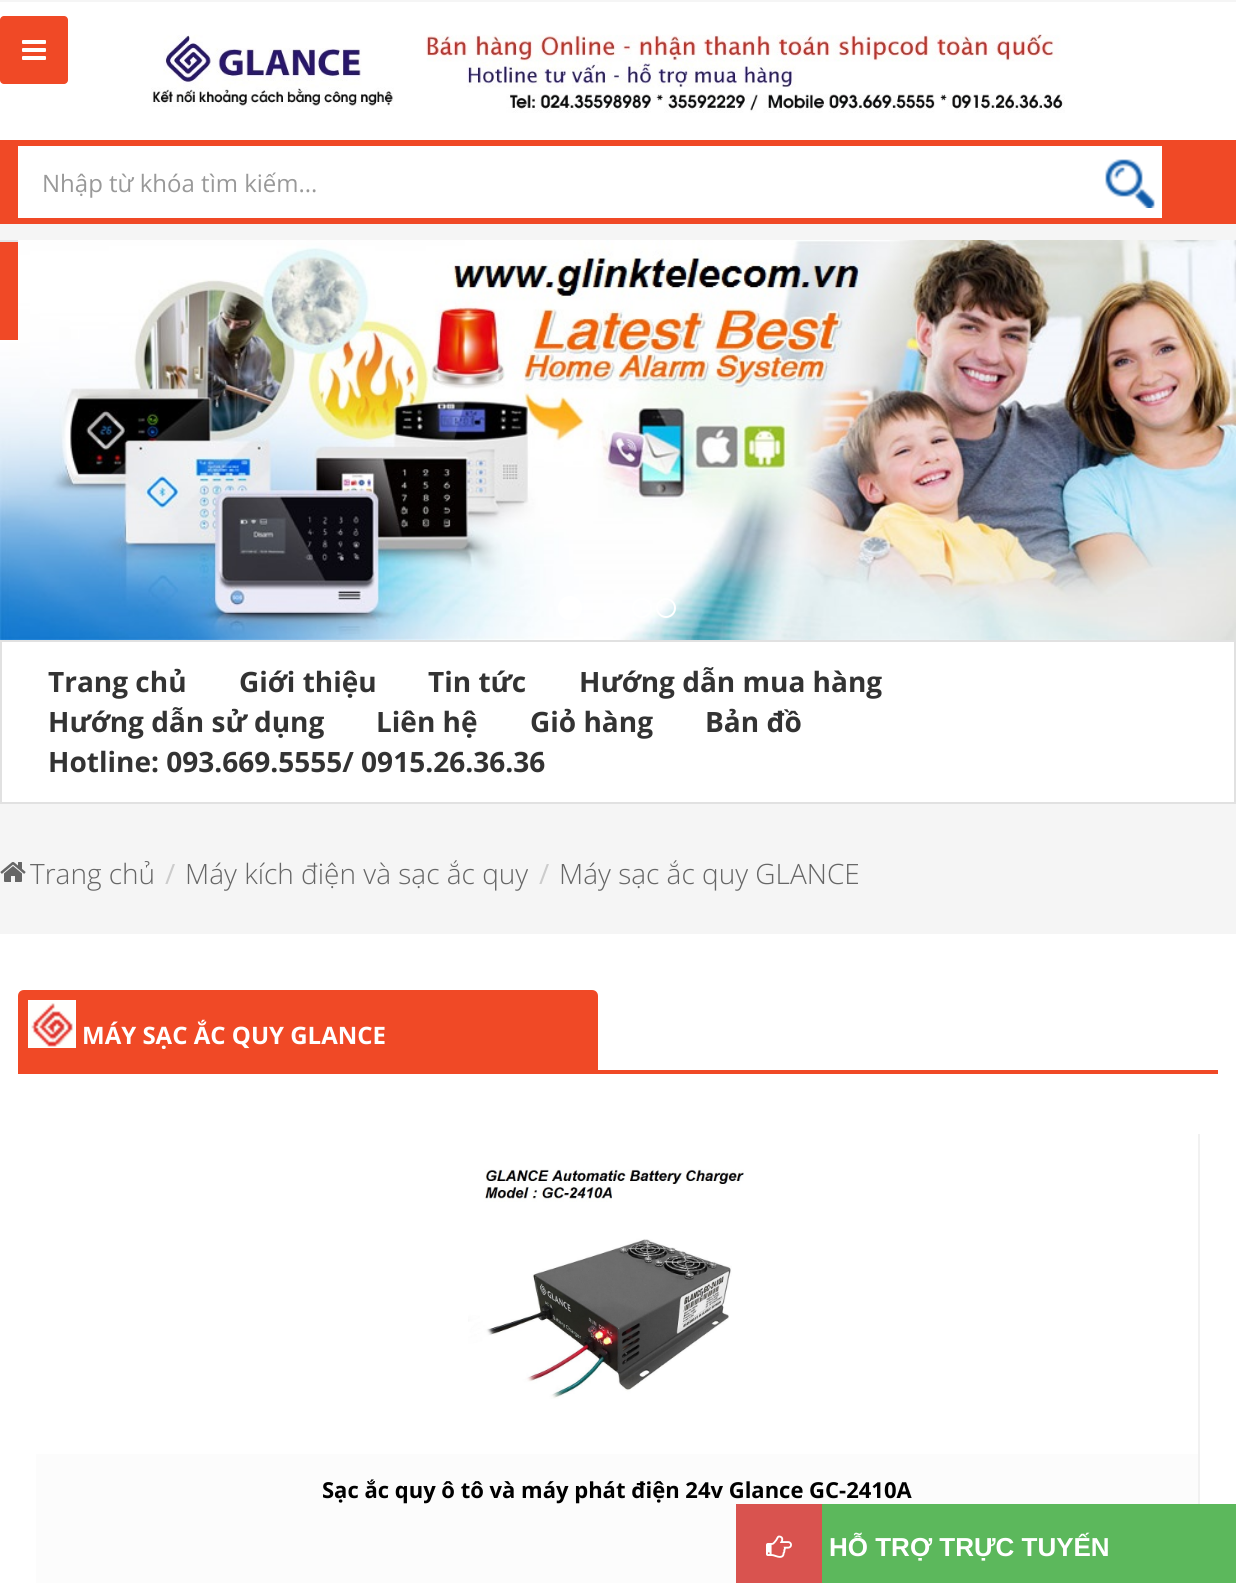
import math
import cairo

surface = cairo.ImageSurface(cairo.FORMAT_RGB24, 1236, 1583)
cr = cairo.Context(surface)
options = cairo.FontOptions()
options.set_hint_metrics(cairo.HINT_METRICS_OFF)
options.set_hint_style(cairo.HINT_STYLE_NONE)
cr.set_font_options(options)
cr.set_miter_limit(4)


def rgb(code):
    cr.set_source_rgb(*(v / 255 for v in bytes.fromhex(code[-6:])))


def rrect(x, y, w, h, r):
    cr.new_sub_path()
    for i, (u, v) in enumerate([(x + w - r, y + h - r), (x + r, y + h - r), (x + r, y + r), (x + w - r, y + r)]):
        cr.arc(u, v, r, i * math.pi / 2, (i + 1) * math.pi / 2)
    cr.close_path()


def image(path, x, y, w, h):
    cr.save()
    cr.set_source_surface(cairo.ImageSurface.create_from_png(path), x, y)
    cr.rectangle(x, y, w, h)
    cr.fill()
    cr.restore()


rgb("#f5f5f5")
cr.paint()
rgb("#ffffff")
cr.rectangle(0, 2, 1236, 138)
cr.fill()
image("img/1.png", 151, 34, 914, 79)
rgb("#f04926")
rrect(0, 16, 68, 68, 4)
cr.fill()
image("img/2.png", 22, 40, 24, 20)
cr.rectangle(0, 140, 1236, 84)
cr.fill()
rgb("#ffffff")
cr.rectangle(18, 146, 1144, 72)
cr.fill()
image("img/3.png", 1105, 159, 50, 49)
image("img/4.png", 0, 240, 1236, 400)
cr.arc(570, 608, 12, 0, 2 * math.pi)
cr.fill()
cr.arc(642, 608, 9, 0, 2 * math.pi)
cr.stroke()
cr.arc(666, 608, 9, 0, 2 * math.pi)
cr.stroke()
rgb("#f04926")
cr.rectangle(0, 242, 18, 98)
cr.fill()
rgb("#e5e5e5")
cr.rectangle(0, 240, 18, 2)
cr.fill()
rgb("#ffffff")
cr.rectangle(1, 641, 1234, 162)
cr.fill_preserve()
rgb("#e1e1e1")
cr.stroke()
image("img/5.png", 0, 862, 26, 20)
rgb("#ffffff")
cr.rectangle(0, 934, 1236, 649)
cr.fill()
rgb("#f04926")
cr.rectangle(18, 1070, 1200, 4)
cr.fill()
cr.new_path()
cr.move_to(24, 990)
cr.line_to(592, 990)
cr.curve_to(595.5, 990, 598, 992.5, 598, 996)
cr.line_to(598, 1070)
cr.line_to(18, 1070)
cr.line_to(18, 996)
cr.curve_to(18, 992.5, 20.5, 990, 24, 990)
cr.close_path()
cr.fill()
image("img/6.png", 28, 1000, 48, 48)
rgb("#f1f1f1")
cr.rectangle(1198, 1134, 2, 370)
cr.fill()
image("img/7.png", 468, 1169, 276, 230)
for x, y, w, h, color in [
    (36, 1454, 1162, 96, "#fcfcfc"),
    (36, 1550, 700, 33, "#fcfcfc"),
    (822, 1504, 414, 79, "#5cb85c"),
    (736, 1504, 86, 79, "#d9534f"),
]:
    rgb(color)
    cr.rectangle(x, y, w, h)
    cr.fill()
image("img/8.png", 766, 1535, 26, 23)
cr.select_font_face("Open Sans")
cr.set_font_size(24)
rgb("#999999")
cr.move_to(42, 192)
cr.show_text("Nhập từ khóa tìm kiếm...")
cr.select_font_face("Open Sans", cairo.FONT_SLANT_NORMAL, cairo.FONT_WEIGHT_BOLD)
cr.set_font_size(28)
rgb("#333333")
for x, y, s in [
    (48, 692, "Trang chủ"),
    (239, 692, "Giới thiệu"),
    (428, 692, "Tin tức"),
    (579, 692, "Hướng dẫn mua hàng"),
    (48, 732, "Hướng dẫn sử dụng"),
    (376, 732, "Liên hệ"),
    (530, 732, "Giỏ hàng"),
    (705, 732, "Bản đồ"),
    (48, 772, "Hotline: 093.669.5555/ 0915.26.36.36"),
]:
    cr.move_to(x, y)
    cr.show_text(s)
cr.select_font_face("Open Sans Light")
rgb("#666666")
cr.move_to(30, 884)
cr.show_text("Trang chủ")
cr.select_font_face("Open Sans")
rgb("#cccccc")
cr.move_to(165, 884)
cr.show_text("/")
cr.select_font_face("Open Sans Light")
rgb("#666666")
cr.move_to(185, 884)
cr.show_text("Máy kích điện và sạc ắc quy")
cr.select_font_face("Open Sans")
rgb("#cccccc")
cr.move_to(539, 884)
cr.show_text("/")
cr.select_font_face("Open Sans Light")
rgb("#666666")
cr.move_to(559, 884)
cr.show_text("Máy sạc ắc quy GLANCE")
cr.select_font_face("Open Sans", cairo.FONT_SLANT_NORMAL, cairo.FONT_WEIGHT_BOLD)
cr.set_font_size(24)
rgb("#ffffff")
cr.move_to(82, 1044)
cr.show_text("MÁY SẠC ẮC QUY GLANCE")
cr.set_font_size(22)
rgb("#000000")
cr.move_to(322, 1498)
cr.show_text("Sạc ắc quy ô tô và máy phát điện 24v Glance GC-2410A")
cr.select_font_face("Liberation Sans", cairo.FONT_SLANT_NORMAL, cairo.FONT_WEIGHT_BOLD)
cr.set_font_size(26)
rgb("#ffffff")
cr.move_to(829, 1556)
cr.show_text("HỖ TRỢ TRỰC TUYẾN")
surface.write_to_png("page.png")
